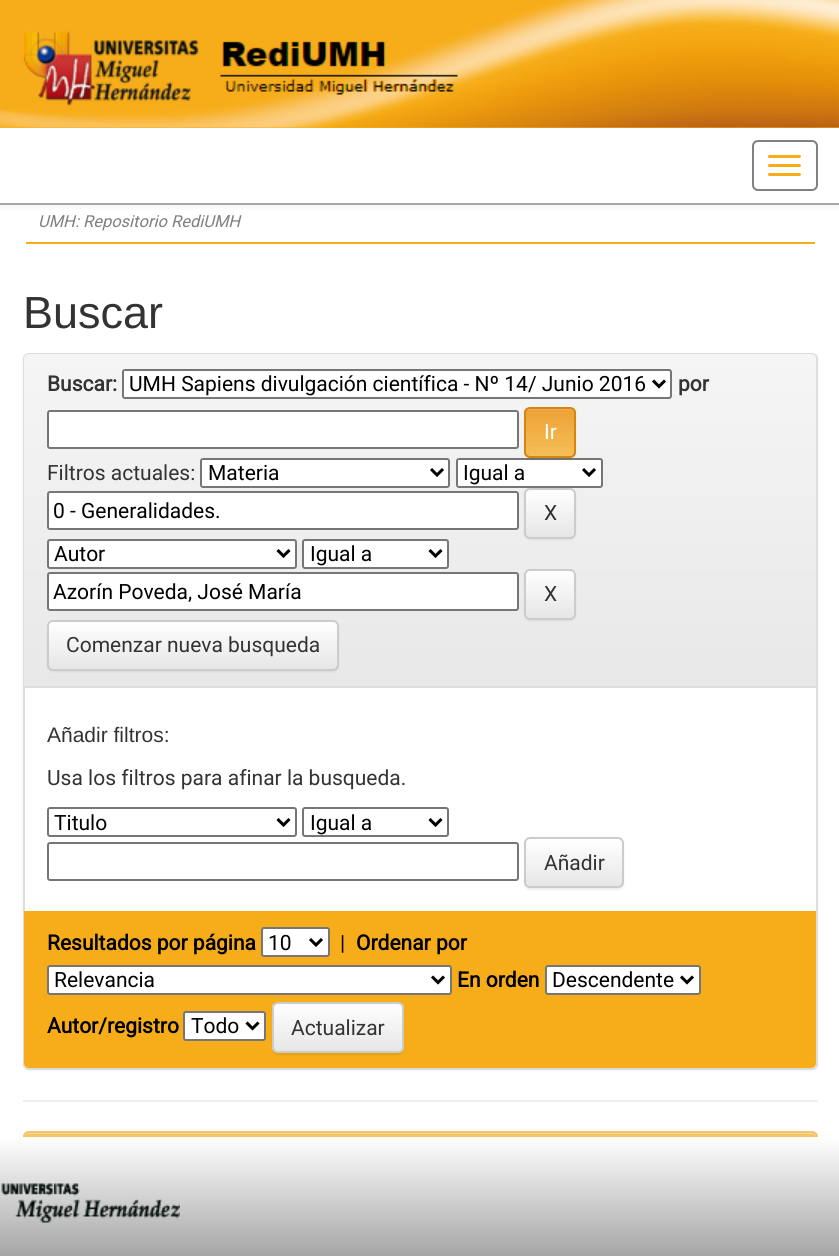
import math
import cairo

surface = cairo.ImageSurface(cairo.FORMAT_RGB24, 839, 1256)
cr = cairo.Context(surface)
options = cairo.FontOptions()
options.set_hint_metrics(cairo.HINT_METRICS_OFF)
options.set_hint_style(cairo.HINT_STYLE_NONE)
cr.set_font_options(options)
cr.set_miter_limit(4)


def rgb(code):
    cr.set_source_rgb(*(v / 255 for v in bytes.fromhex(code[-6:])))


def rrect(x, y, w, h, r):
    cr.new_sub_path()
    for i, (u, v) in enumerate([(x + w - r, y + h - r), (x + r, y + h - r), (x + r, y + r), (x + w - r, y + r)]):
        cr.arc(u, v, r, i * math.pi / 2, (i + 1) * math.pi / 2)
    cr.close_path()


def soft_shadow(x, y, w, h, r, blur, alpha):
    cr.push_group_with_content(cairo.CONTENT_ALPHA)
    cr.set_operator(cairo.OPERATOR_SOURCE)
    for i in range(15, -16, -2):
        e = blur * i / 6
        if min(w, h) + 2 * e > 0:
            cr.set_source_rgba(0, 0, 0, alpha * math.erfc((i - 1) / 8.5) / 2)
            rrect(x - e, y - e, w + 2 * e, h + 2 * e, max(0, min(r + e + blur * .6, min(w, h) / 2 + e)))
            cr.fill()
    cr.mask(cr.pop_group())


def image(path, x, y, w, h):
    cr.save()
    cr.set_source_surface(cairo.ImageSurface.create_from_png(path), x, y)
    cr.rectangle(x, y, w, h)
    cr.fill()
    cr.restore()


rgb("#ffffff")
cr.paint()
rgb("#000000")
soft_shadow(0, 2, 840, 204, 0, 4, 0.07)
for x, y, w, h, color in [
    (0, 128, 839, 75, "#ffffff"),
    (0, 203, 839, 2, "#a6a6a6"),
    (0, 0, 839, 128, "#f7ad1a"),
]:
    rgb(color)
    cr.rectangle(x, y, w, h)
    cr.fill()
image("img/1.png", 0, 0, 839, 128)
image("img/2.png", 23, 31, 435, 75)
rrect(753, 141, 64, 49, 5)
rgb("#808080")
cr.stroke()
rgb("#f7ad1a")
rrect(768, 155, 33, 3, 1.5)
cr.fill()
rrect(768, 164, 33, 3, 1.5)
cr.fill()
rrect(768, 173, 33, 3, 1.5)
cr.fill()
cr.rectangle(26, 242, 789, 2)
cr.fill()
rgb("#000000")
soft_shadow(23, 354, 795, 717, 6, 1.5, 0.05)
rgb("#ffffff")
rrect(24, 354, 793, 715, 5)
cr.fill_preserve()
rgb("#dddddd")
cr.stroke()
gradient = cairo.LinearGradient(420, 354, 420, 686)
gradient.add_color_stop_rgba(0, 0.961, 0.961, 0.961, 1)
gradient.add_color_stop_rgba(1, 0.91, 0.91, 0.91, 1)
cr.set_source(gradient)
cr.new_path()
cr.move_to(29, 354)
cr.line_to(811, 354)
cr.curve_to(814, 354, 816, 356, 816, 359)
cr.line_to(816, 686)
cr.line_to(24, 686)
cr.line_to(24, 359)
cr.curve_to(24, 356, 26, 354, 29, 354)
cr.close_path()
cr.fill()
rgb("#dddddd")
cr.rectangle(24, 686, 792, 2)
cr.fill()
rgb("#ffffff")
rrect(123, 370, 548, 28, 2)
cr.fill_preserve()
rgb("#767676")
cr.stroke()
cr.new_path()
cr.move_to(653, 380.5)
cr.line_to(659, 386.5)
cr.line_to(665, 380.5)
rgb("#000000")
cr.set_line_width(3)
cr.stroke()
rgb("#ffffff")
rrect(48, 411, 470, 37, 2)
cr.fill_preserve()
rgb("#767676")
cr.set_line_width(2)
cr.stroke()
rgb("#ffffff")
rrect(457, 459, 145, 28, 2)
cr.fill_preserve()
rgb("#767676")
cr.stroke()
rgb("#000000")
soft_shadow(524, 408, 52, 51, 6, 1, 0.07)
cr.save()
rrect(524, 407, 52, 51, 6)
cr.clip()
gradient = cairo.LinearGradient(550, 408, 550, 456)
gradient.add_color_stop_rgba(0, 0.929, 0.631, 0.208, 1)
gradient.add_color_stop_rgba(1, 0.957, 0.749, 0.341, 1)
cr.set_source(gradient)
cr.rectangle(524, 408, 52, 48)
cr.fill()
cr.restore()
cr.set_source_rgba(1, 1, 1, 0.15)
cr.new_path()
cr.move_to(530, 410)
cr.line_to(571, 410)
cr.curve_to(575, 411, 574, 417, 574, 420)
cr.line_to(574, 454)
cr.curve_to(575, 453, 575, 452, 575, 451)
cr.line_to(575, 413)
cr.curve_to(575, 410, 573, 408, 570, 408)
cr.line_to(530, 408)
cr.curve_to(527, 408, 525, 410, 525, 413)
cr.line_to(525, 414)
cr.curve_to(525, 412, 527, 410, 530, 410)
cr.close_path()
cr.fill()
rrect(525, 408, 50, 49, 5)
rgb("#d58512")
cr.stroke()
rgb("#ffffff")
rrect(201, 459, 248, 28, 2)
cr.fill_preserve()
rgb("#767676")
cr.stroke()
cr.new_path()
cr.move_to(431, 469)
cr.line_to(437, 475)
cr.line_to(443, 469)
rgb("#000000")
cr.set_line_width(3)
cr.stroke()
cr.new_path()
cr.move_to(583, 469)
cr.line_to(589, 475)
cr.line_to(595, 469)
cr.stroke()
rgb("#ffffff")
rrect(48, 492, 470, 37, 2)
cr.fill_preserve()
rgb("#767676")
cr.set_line_width(2)
cr.stroke()
rgb("#000000")
soft_shadow(524, 489, 52, 51, 6, 1, 0.07)
cr.save()
rrect(524, 488, 52, 51, 6)
cr.clip()
gradient = cairo.LinearGradient(550, 489, 550, 537)
gradient.add_color_stop_rgba(0, 1, 1, 1, 1)
gradient.add_color_stop_rgba(1, 0.902, 0.902, 0.902, 1)
cr.set_source(gradient)
cr.rectangle(524, 489, 52, 48)
cr.fill()
cr.restore()
cr.set_source_rgba(1, 1, 1, 0.15)
cr.new_path()
cr.move_to(530, 490)
cr.line_to(571, 490)
cr.curve_to(575, 492, 574, 499, 574, 502)
cr.line_to(574, 535)
cr.curve_to(575, 534, 575, 533, 575, 532)
cr.line_to(575, 494)
cr.curve_to(575, 491, 573, 489, 570, 489)
cr.line_to(530, 489)
cr.curve_to(527, 489, 525, 491, 525, 494)
cr.line_to(525, 495)
cr.curve_to(525, 493, 527, 490, 530, 490)
cr.close_path()
cr.fill()
rrect(525, 489, 50, 49, 5)
rgb("#cccccc")
cr.stroke()
rgb("#ffffff")
rrect(48, 540, 248, 28, 2)
cr.fill_preserve()
rgb("#767676")
cr.stroke()
cr.new_path()
cr.move_to(277.5, 550)
cr.line_to(283.5, 556)
cr.line_to(289.5, 550)
rgb("#000000")
cr.set_line_width(3)
cr.stroke()
rgb("#ffffff")
rrect(303, 540, 145, 28, 2)
cr.fill_preserve()
rgb("#767676")
cr.set_line_width(2)
cr.stroke()
cr.new_path()
cr.move_to(429.5, 550)
cr.line_to(435.5, 556)
cr.line_to(441.5, 550)
rgb("#000000")
cr.set_line_width(3)
cr.stroke()
rgb("#ffffff")
rrect(48, 573, 470, 37, 2)
cr.fill_preserve()
rgb("#767676")
cr.set_line_width(2)
cr.stroke()
rgb("#000000")
soft_shadow(524, 570, 52, 51, 6, 1, 0.07)
cr.save()
rrect(524, 569, 52, 51, 6)
cr.clip()
gradient = cairo.LinearGradient(550, 570, 550, 618)
gradient.add_color_stop_rgba(0, 1, 1, 1, 1)
gradient.add_color_stop_rgba(1, 0.902, 0.902, 0.902, 1)
cr.set_source(gradient)
cr.rectangle(524, 570, 52, 48)
cr.fill()
cr.restore()
cr.set_source_rgba(1, 1, 1, 0.15)
cr.new_path()
cr.move_to(530, 572)
cr.line_to(571, 572)
cr.curve_to(575, 573, 574, 579, 574, 582)
cr.line_to(574, 616)
cr.curve_to(575, 615, 575, 614, 575, 613)
cr.line_to(575, 575)
cr.curve_to(575, 572, 573, 570, 570, 570)
cr.line_to(530, 570)
cr.curve_to(527, 570, 525, 572, 525, 575)
cr.line_to(525, 576)
cr.curve_to(525, 574, 527, 572, 530, 572)
cr.close_path()
cr.fill()
rrect(525, 570, 50, 49, 5)
rgb("#cccccc")
cr.stroke()
rgb("#000000")
soft_shadow(47, 621, 292, 51, 6, 1, 0.07)
cr.save()
rrect(47, 620, 292, 51, 6)
cr.clip()
gradient = cairo.LinearGradient(193, 621, 193, 669)
gradient.add_color_stop_rgba(0, 1, 1, 1, 1)
gradient.add_color_stop_rgba(1, 0.902, 0.902, 0.902, 1)
cr.set_source(gradient)
cr.rectangle(47, 621, 292, 48)
cr.fill()
cr.restore()
rrect(48, 621, 290, 49, 5)
rgb("#cccccc")
cr.stroke()
rrect(48, 808, 248, 28, 2)
rgb("#767676")
cr.stroke()
cr.new_path()
cr.move_to(277.5, 819)
cr.line_to(283.5, 825)
cr.line_to(289.5, 819)
rgb("#000000")
cr.set_line_width(3)
cr.stroke()
rrect(303, 808, 145, 28, 2)
rgb("#767676")
cr.set_line_width(2)
cr.stroke()
cr.new_path()
cr.move_to(429.5, 819)
cr.line_to(435.5, 825)
cr.line_to(441.5, 819)
rgb("#000000")
cr.set_line_width(3)
cr.stroke()
rrect(48, 843, 470, 37, 2)
rgb("#767676")
cr.set_line_width(2)
cr.stroke()
rgb("#000000")
soft_shadow(524, 839, 100, 51, 6, 1, 0.07)
cr.save()
rrect(524, 837, 100, 51, 6)
cr.clip()
gradient = cairo.LinearGradient(574, 839, 574, 887)
gradient.add_color_stop_rgba(0, 1, 1, 1, 1)
gradient.add_color_stop_rgba(1, 0.902, 0.902, 0.902, 1)
cr.set_source(gradient)
cr.rectangle(524, 839, 100, 48)
cr.fill()
cr.restore()
cr.set_source_rgba(1, 1, 1, 0.15)
cr.new_path()
cr.move_to(530, 840)
cr.line_to(618, 840)
cr.curve_to(623, 840, 622, 848, 622, 851)
cr.line_to(622, 885)
cr.curve_to(623, 884, 623, 883, 623, 882)
cr.line_to(623, 844)
cr.curve_to(623, 841, 621, 839, 618, 839)
cr.line_to(530, 839)
cr.curve_to(527, 839, 525, 841, 525, 844)
cr.curve_to(525, 842, 527, 840, 530, 840)
cr.close_path()
cr.fill()
rrect(525, 838, 98, 49, 5)
rgb("#cccccc")
cr.stroke()
rgb("#f7ad1a")
cr.new_path()
cr.move_to(24, 911)
cr.line_to(816, 911)
cr.line_to(816, 1063)
cr.curve_to(816, 1066, 814, 1068, 811, 1068)
cr.line_to(29, 1068)
cr.curve_to(26, 1068, 24, 1066, 24, 1063)
cr.close_path()
cr.fill()
rgb("#ffffff")
rrect(262, 928, 67, 28, 2)
cr.fill_preserve()
rgb("#767676")
cr.stroke()
cr.new_path()
cr.move_to(310, 939)
cr.line_to(316, 945)
cr.line_to(322, 939)
rgb("#000000")
cr.set_line_width(3)
cr.stroke()
rgb("#ffffff")
rrect(48, 966, 403, 28, 2)
cr.fill_preserve()
rgb("#767676")
cr.set_line_width(2)
cr.stroke()
cr.new_path()
cr.move_to(432, 976.5)
cr.line_to(438, 982.5)
cr.line_to(444, 976.5)
rgb("#000000")
cr.set_line_width(3)
cr.stroke()
rgb("#ffffff")
rrect(546, 966, 154, 28, 2)
cr.fill_preserve()
rgb("#767676")
cr.set_line_width(2)
cr.stroke()
cr.new_path()
cr.move_to(681, 976.5)
cr.line_to(687, 982.5)
cr.line_to(693, 976.5)
rgb("#000000")
cr.set_line_width(3)
cr.stroke()
rgb("#ffffff")
rrect(184, 1012, 81, 28, 2)
cr.fill_preserve()
rgb("#767676")
cr.set_line_width(2)
cr.stroke()
cr.new_path()
cr.move_to(246.5, 1022.5)
cr.line_to(252.5, 1028.5)
cr.line_to(258.5, 1022.5)
rgb("#000000")
cr.set_line_width(3)
cr.stroke()
rgb("#000000")
soft_shadow(272, 1004, 132, 51, 6, 1, 0.07)
cr.save()
rrect(272, 1002, 132, 51, 6)
cr.clip()
gradient = cairo.LinearGradient(338, 1004, 338, 1052)
gradient.add_color_stop_rgba(0, 1, 1, 1, 1)
gradient.add_color_stop_rgba(1, 0.902, 0.902, 0.902, 1)
cr.set_source(gradient)
cr.rectangle(272, 1004, 132, 48)
cr.fill()
cr.restore()
rrect(273, 1003, 130, 49, 5)
rgb("#cccccc")
cr.set_line_width(2)
cr.stroke()
rgb("#eeeeee")
cr.rectangle(23, 1100, 795, 2)
cr.fill()
cr.save()
rrect(23, 1131, 795, 78, 6)
cr.clip()
gradient = cairo.LinearGradient(420, 1133, 420, 1208)
gradient.add_color_stop_rgba(0, 0.953, 0.776, 0.431, 1)
gradient.add_color_stop_rgba(1, 0.969, 0.678, 0.102, 1)
cr.set_source(gradient)
cr.rectangle(23, 1133, 795, 4)
cr.fill()
cr.restore()
rgb("#f6d491")
cr.new_path()
cr.move_to(28, 1134)
cr.line_to(812, 1134)
cr.curve_to(814, 1134, 816, 1136, 816, 1138)
cr.curve_to(816, 1135, 814, 1133, 811, 1133)
cr.line_to(29, 1133)
cr.curve_to(26, 1133, 24, 1135, 24, 1138)
cr.curve_to(24, 1136, 26, 1134, 28, 1134)
cr.close_path()
cr.fill()
rrect(24, 1132, 793, 76, 5)
rgb("#f3c66e")
cr.stroke()
gradient = cairo.LinearGradient(420, 1137, 420, 1256)
gradient.add_color_stop_rgba(0, 1, 1, 1, 1)
gradient.add_color_stop_rgba(1, 0.651, 0.651, 0.651, 1)
cr.set_source(gradient)
cr.rectangle(0, 1137, 839, 119)
cr.fill()
image("img/3.png", 1, 1183, 179, 40)
cr.select_font_face("Roboto", cairo.FONT_SLANT_ITALIC)
cr.set_font_size(16.5)
rgb("#808080")
cr.move_to(38, 227)
cr.show_text("UMH: Repositorio RediUMH")
cr.select_font_face("Liberation Sans")
cr.set_font_size(45)
rgb("#333333")
cr.move_to(23, 328)
cr.show_text("Buscar")
cr.select_font_face("Roboto", cairo.FONT_SLANT_NORMAL, cairo.FONT_WEIGHT_BOLD)
cr.set_font_size(21)
cr.move_to(47, 391)
cr.show_text("Buscar:")
cr.select_font_face("Roboto")
rgb("#000000")
cr.move_to(129, 391)
cr.show_text("UMH Sapiens divulgación científica - Nº 14/ Junio 2016")
cr.select_font_face("Roboto", cairo.FONT_SLANT_NORMAL, cairo.FONT_WEIGHT_BOLD)
rgb("#333333")
cr.move_to(678, 391)
cr.show_text("por")
cr.select_font_face("Roboto")
rgb("#ffffff")
cr.move_to(544, 439)
cr.show_text("Ir")
rgb("#333333")
cr.move_to(47, 480)
cr.show_text("Filtros actuales:")
rgb("#000000")
for x, y, s in [
    (208, 480, "Materia"),
    (463, 480, "Igual a"),
    (53, 518, "0 - Generalidades."),
]:
    cr.move_to(x, y)
    cr.show_text(s)
rgb("#333333")
cr.move_to(544, 520)
cr.show_text("X")
rgb("#000000")
for x, y, s in [
    (54, 561, "Autor"),
    (310, 561, "Igual a"),
    (53, 599, "Azorín Poveda, José María"),
]:
    cr.move_to(x, y)
    cr.show_text(s)
rgb("#333333")
cr.move_to(544, 601)
cr.show_text("X")
cr.move_to(66, 652)
cr.show_text("Comenzar nueva busqueda")
cr.select_font_face("Liberation Sans")
cr.move_to(47, 742)
cr.show_text("Añadir filtros:")
cr.select_font_face("Roboto")
cr.move_to(47, 785)
cr.show_text("Usa los filtros para afinar la busqueda.")
rgb("#000000")
cr.move_to(54, 830)
cr.show_text("Titulo")
cr.move_to(310, 830)
cr.show_text("Igual a")
rgb("#333333")
cr.move_to(544, 870)
cr.show_text("Añadir")
cr.select_font_face("Roboto", cairo.FONT_SLANT_NORMAL, cairo.FONT_WEIGHT_BOLD)
rgb("#000000")
cr.move_to(47, 950)
cr.show_text("Resultados por página")
cr.select_font_face("Roboto")
cr.move_to(268, 950)
cr.show_text("10")
cr.move_to(340, 950)
cr.show_text("|")
cr.select_font_face("Roboto", cairo.FONT_SLANT_NORMAL, cairo.FONT_WEIGHT_BOLD)
cr.move_to(356, 950)
cr.show_text("Ordenar por")
cr.select_font_face("Roboto")
cr.move_to(54, 987)
cr.show_text("Relevancia")
cr.select_font_face("Roboto", cairo.FONT_SLANT_NORMAL, cairo.FONT_WEIGHT_BOLD)
cr.move_to(457, 987)
cr.show_text("En orden")
cr.select_font_face("Roboto")
cr.move_to(552, 987)
cr.show_text("Descendente")
cr.select_font_face("Roboto", cairo.FONT_SLANT_NORMAL, cairo.FONT_WEIGHT_BOLD)
cr.move_to(47, 1033)
cr.show_text("Autor/registro")
cr.select_font_face("Roboto")
cr.move_to(191, 1033)
cr.show_text("Todo")
rgb("#333333")
cr.move_to(291, 1035)
cr.show_text("Actualizar")
surface.write_to_png("page.png")
